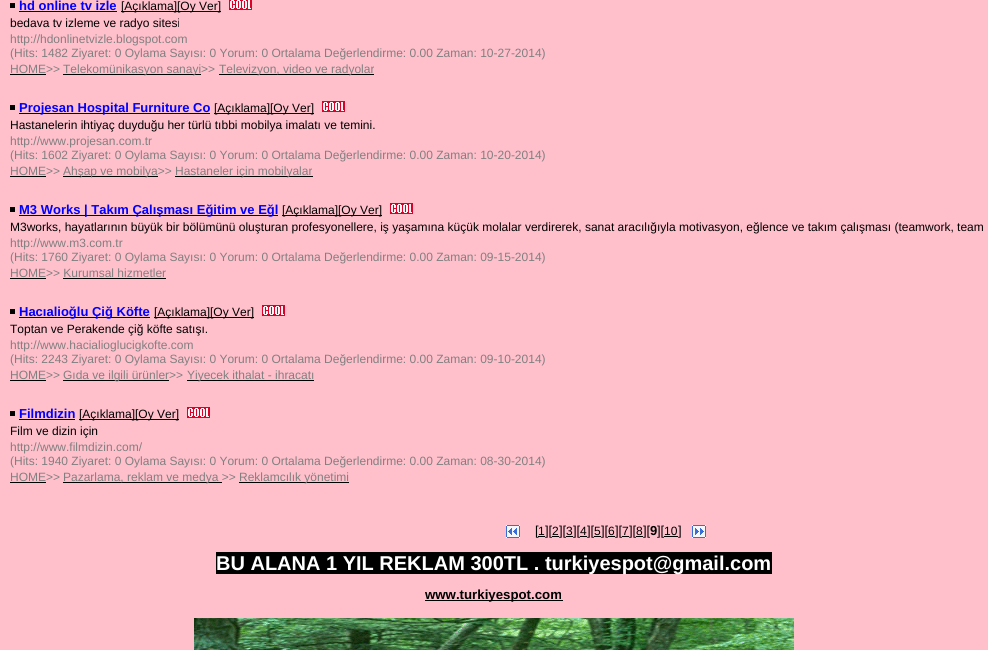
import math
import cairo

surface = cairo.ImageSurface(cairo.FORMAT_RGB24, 988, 650)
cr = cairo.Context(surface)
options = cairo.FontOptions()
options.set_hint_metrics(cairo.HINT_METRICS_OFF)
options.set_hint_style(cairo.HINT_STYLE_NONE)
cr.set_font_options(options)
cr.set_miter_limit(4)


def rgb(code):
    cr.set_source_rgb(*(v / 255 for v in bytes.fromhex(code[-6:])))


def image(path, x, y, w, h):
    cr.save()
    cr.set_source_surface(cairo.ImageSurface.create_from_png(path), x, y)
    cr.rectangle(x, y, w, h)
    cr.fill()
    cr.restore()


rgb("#ffc0cb")
cr.paint()
for x, y, w, h, color in [
    (10, 3, 5, 5, "#000000"),
    (19, 11, 98, 1, "#000000"),
    (121, 11, 100, 1, "#000000"),
]:
    rgb(color)
    cr.rectangle(x, y, w, h)
    cr.fill()
image("img/1.png", 229, 0, 23, 10)
for x, y, w, h, color in [
    (10, 74, 36, 1, "#000000"),
    (63, 74, 138, 1, "#000000"),
    (219, 74, 155, 1, "#000000"),
    (10, 105, 5, 5, "#000000"),
    (19, 113, 191, 1, "#000000"),
    (214, 113, 100, 1, "#000000"),
]:
    rgb(color)
    cr.rectangle(x, y, w, h)
    cr.fill()
image("img/2.png", 322, 101, 23, 11)
for x, y, w, h, color in [
    (10, 176, 36, 1, "#000000"),
    (63, 176, 95, 1, "#000000"),
    (175, 176, 138, 1, "#000000"),
    (10, 207, 5, 5, "#000000"),
    (19, 215, 259, 1, "#000000"),
    (282, 215, 100, 1, "#000000"),
]:
    rgb(color)
    cr.rectangle(x, y, w, h)
    cr.fill()
image("img/2.png", 390, 203, 23, 11)
for x, y, w, h, color in [
    (10, 278, 36, 1, "#000000"),
    (63, 278, 103, 1, "#000000"),
    (10, 309, 5, 5, "#000000"),
    (19, 317, 131, 1, "#000000"),
    (154, 317, 100, 1, "#000000"),
]:
    rgb(color)
    cr.rectangle(x, y, w, h)
    cr.fill()
image("img/2.png", 262, 305, 23, 11)
for x, y, w, h, color in [
    (10, 380, 36, 1, "#000000"),
    (63, 380, 106, 1, "#000000"),
    (187, 380, 127, 1, "#000000"),
    (10, 411, 5, 5, "#000000"),
    (19, 419, 56, 1, "#000000"),
    (79, 419, 100, 1, "#000000"),
]:
    rgb(color)
    cr.rectangle(x, y, w, h)
    cr.fill()
image("img/2.png", 187, 407, 23, 11)
for x, y, w, h, color in [
    (10, 482, 36, 1, "#000000"),
    (63, 482, 159, 1, "#000000"),
    (239, 482, 110, 1, "#000000"),
]:
    rgb(color)
    cr.rectangle(x, y, w, h)
    cr.fill()
image("img/3.png", 506, 525, 14, 13)
for x, y, w, h, color in [
    (538, 536, 7, 1, "#000000"),
    (552, 536, 7, 1, "#000000"),
    (566, 536, 7, 1, "#000000"),
    (580, 536, 7, 1, "#000000"),
    (594, 536, 7, 1, "#000000"),
    (608, 536, 7, 1, "#000000"),
    (622, 536, 7, 1, "#000000"),
    (636, 536, 7, 1, "#000000"),
    (664, 536, 14, 1, "#000000"),
]:
    rgb(color)
    cr.rectangle(x, y, w, h)
    cr.fill()
image("img/4.png", 692, 525, 14, 13)
cr.rectangle(216, 552, 556, 22)
cr.fill()
cr.rectangle(425, 600, 138, 1)
cr.fill()
image("img/5.png", 194, 618, 600, 32)
cr.select_font_face("Liberation Sans", cairo.FONT_SLANT_NORMAL, cairo.FONT_WEIGHT_BOLD)
cr.set_font_size(13)
rgb("#0000ff")
cr.move_to(19, 10)
cr.show_text("hd online tv izle")
cr.select_font_face("Liberation Sans")
cr.set_font_size(12)
rgb("#000000")
cr.move_to(121, 10)
cr.show_text("[Açıklama][Oy Ver]")
cr.move_to(10, 27)
cr.show_text("bedava tv izleme ve radyo sitesi")
rgb("#808080")
for x, y, s in [
    (10, 43, "http://hdonlinetvizle.blogspot.com"),
    (10, 57, "(Hits: 1482 Ziyaret: 0 Oylama Sayısı: 0 Yorum: 0 Ortalama Değerlendirme: 0.00 Zaman: 10-27-2014)"),
    (10, 73, "HOME>>"),
    (63, 73, "Telekomünikasyon sanayi>>"),
    (219, 73, "Televizyon, video ve radyolar"),
]:
    cr.move_to(x, y)
    cr.show_text(s)
cr.select_font_face("Liberation Sans", cairo.FONT_SLANT_NORMAL, cairo.FONT_WEIGHT_BOLD)
cr.set_font_size(13)
rgb("#0000ff")
cr.move_to(19, 112)
cr.show_text("Projesan Hospital Furniture Co")
cr.select_font_face("Liberation Sans")
cr.set_font_size(12)
rgb("#000000")
cr.move_to(214, 112)
cr.show_text("[Açıklama][Oy Ver]")
cr.move_to(10, 129)
cr.show_text("Hastanelerin ihtiyaç duyduğu her türlü tıbbi mobilya imalatı ve temini.")
rgb("#808080")
for x, y, s in [
    (10, 145, "http://www.projesan.com.tr"),
    (10, 159, "(Hits: 1602 Ziyaret: 0 Oylama Sayısı: 0 Yorum: 0 Ortalama Değerlendirme: 0.00 Zaman: 10-20-2014)"),
    (10, 175, "HOME>>"),
    (63, 175, "Ahşap ve mobilya>>"),
    (175, 175, "Hastaneler için mobilyalar"),
]:
    cr.move_to(x, y)
    cr.show_text(s)
cr.select_font_face("Liberation Sans", cairo.FONT_SLANT_NORMAL, cairo.FONT_WEIGHT_BOLD)
cr.set_font_size(13)
rgb("#0000ff")
cr.move_to(19, 214)
cr.show_text("M3 Works | Takım Çalışması Eğitim ve Eğl")
cr.select_font_face("Liberation Sans")
cr.set_font_size(12)
rgb("#000000")
cr.move_to(282, 214)
cr.show_text("[Açıklama][Oy Ver]")
cr.move_to(10, 231)
cr.show_text("M3works, hayatlarının büyük bir bölümünü oluşturan profesyonellere, iş yaşamına küçük molalar verdirerek, sanat aracılığıyla motivasyon, eğlence ve takım çalışması (teamwork, team")
rgb("#808080")
for x, y, s in [
    (10, 247, "http://www.m3.com.tr"),
    (10, 261, "(Hits: 1760 Ziyaret: 0 Oylama Sayısı: 0 Yorum: 0 Ortalama Değerlendirme: 0.00 Zaman: 09-15-2014)"),
    (10, 277, "HOME>> Kurumsal hizmetler"),
]:
    cr.move_to(x, y)
    cr.show_text(s)
cr.select_font_face("Liberation Sans", cairo.FONT_SLANT_NORMAL, cairo.FONT_WEIGHT_BOLD)
cr.set_font_size(13)
rgb("#0000ff")
cr.move_to(19, 316)
cr.show_text("Hacıalioğlu Çiğ Köfte")
cr.select_font_face("Liberation Sans")
cr.set_font_size(12)
rgb("#000000")
cr.move_to(154, 316)
cr.show_text("[Açıklama][Oy Ver]")
cr.move_to(10, 333)
cr.show_text("Toptan ve Perakende çiğ köfte satışı.")
rgb("#808080")
for x, y, s in [
    (10, 349, "http://www.hacialioglucigkofte.com"),
    (10, 363, "(Hits: 2243 Ziyaret: 0 Oylama Sayısı: 0 Yorum: 0 Ortalama Değerlendirme: 0.00 Zaman: 09-10-2014)"),
    (10, 379, "HOME>>"),
    (63, 379, "Gıda ve ilgili ürünler>>"),
    (187, 379, "Yiyecek ithalat - ihracatı"),
]:
    cr.move_to(x, y)
    cr.show_text(s)
cr.select_font_face("Liberation Sans", cairo.FONT_SLANT_NORMAL, cairo.FONT_WEIGHT_BOLD)
cr.set_font_size(13)
rgb("#0000ff")
cr.move_to(19, 418)
cr.show_text("Filmdizin")
cr.select_font_face("Liberation Sans")
cr.set_font_size(12)
rgb("#000000")
cr.move_to(79, 418)
cr.show_text("[Açıklama][Oy Ver]")
cr.move_to(10, 435)
cr.show_text("Film ve dizin için")
rgb("#808080")
for x, y, s in [
    (10, 451, "http://www.filmdizin.com/"),
    (10, 465, "(Hits: 1940 Ziyaret: 0 Oylama Sayısı: 0 Yorum: 0 Ortalama Değerlendirme: 0.00 Zaman: 08-30-2014)"),
    (10, 481, "HOME>>"),
    (63, 481, "Pazarlama, reklam ve medya >>"),
    (239, 481, "Reklamcılık yönetimi"),
]:
    cr.move_to(x, y)
    cr.show_text(s)
cr.set_font_size(13)
rgb("#000000")
cr.move_to(535, 535)
cr.show_text("[")
cr.set_font_size(12)
cr.move_to(538, 535)
cr.show_text("1")
cr.set_font_size(13)
cr.move_to(545, 535)
cr.show_text("][")
cr.set_font_size(12)
cr.move_to(552, 535)
cr.show_text("2")
cr.set_font_size(13)
cr.move_to(559, 535)
cr.show_text("][")
cr.set_font_size(12)
cr.move_to(566, 535)
cr.show_text("3")
cr.set_font_size(13)
cr.move_to(573, 535)
cr.show_text("][")
cr.set_font_size(12)
cr.move_to(580, 535)
cr.show_text("4")
cr.set_font_size(13)
cr.move_to(587, 535)
cr.show_text("][")
cr.set_font_size(12)
cr.move_to(594, 535)
cr.show_text("5")
cr.set_font_size(13)
cr.move_to(601, 535)
cr.show_text("][")
cr.set_font_size(12)
cr.move_to(608, 535)
cr.show_text("6")
cr.set_font_size(13)
cr.move_to(615, 535)
cr.show_text("][")
cr.set_font_size(12)
cr.move_to(622, 535)
cr.show_text("7")
cr.set_font_size(13)
cr.move_to(629, 535)
cr.show_text("][")
cr.set_font_size(12)
cr.move_to(636, 535)
cr.show_text("8")
cr.set_font_size(13)
cr.move_to(643, 535)
cr.show_text("][")
cr.select_font_face("Liberation Sans", cairo.FONT_SLANT_NORMAL, cairo.FONT_WEIGHT_BOLD)
cr.move_to(650, 535)
cr.show_text("9")
cr.select_font_face("Liberation Sans")
cr.move_to(657, 535)
cr.show_text("][")
cr.set_font_size(12)
cr.move_to(664, 535)
cr.show_text("10")
cr.set_font_size(13)
cr.move_to(678, 535)
cr.show_text("]")
cr.select_font_face("Liberation Sans", cairo.FONT_SLANT_NORMAL, cairo.FONT_WEIGHT_BOLD)
cr.set_font_size(20)
rgb("#ffffff")
cr.move_to(216, 570)
cr.show_text("BU ALANA 1 YIL REKLAM 300TL . turkiyespot@gmail.com")
cr.set_font_size(13.25)
rgb("#000000")
cr.move_to(425, 599)
cr.show_text("www.turkiyespot.com")
surface.write_to_png("page.png")
